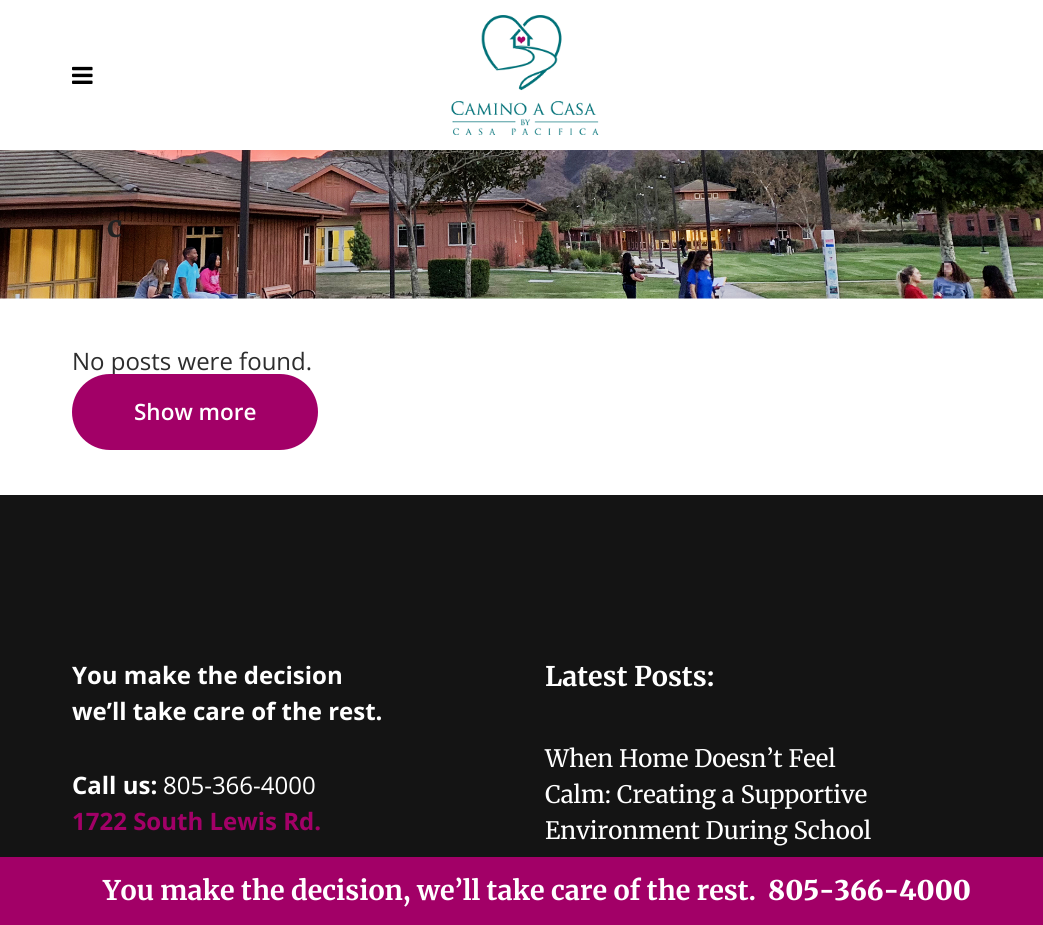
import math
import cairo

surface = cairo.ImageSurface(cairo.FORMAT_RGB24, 1043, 925)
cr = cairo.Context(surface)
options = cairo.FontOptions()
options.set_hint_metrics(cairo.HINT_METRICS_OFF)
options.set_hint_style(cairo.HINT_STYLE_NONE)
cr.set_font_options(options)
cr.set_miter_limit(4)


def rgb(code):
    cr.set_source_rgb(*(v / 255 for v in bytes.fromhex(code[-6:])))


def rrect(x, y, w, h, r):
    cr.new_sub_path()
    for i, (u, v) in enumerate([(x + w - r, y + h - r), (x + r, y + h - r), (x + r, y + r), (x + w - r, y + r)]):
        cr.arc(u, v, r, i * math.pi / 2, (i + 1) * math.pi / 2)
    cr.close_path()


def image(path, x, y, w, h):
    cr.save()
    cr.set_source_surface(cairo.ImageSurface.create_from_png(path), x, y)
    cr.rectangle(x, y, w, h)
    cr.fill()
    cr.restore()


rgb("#ffffff")
cr.paint()
image("img/1.png", 72, 66, 21, 18)
image("img/2.png", 451, 15, 148, 120)
image("img/3.png", 0, 150, 1043, 149)
rgb("#141414")
cr.rectangle(0, 495, 1043, 362)
cr.fill()
rgb("#a20067")
cr.rectangle(0, 857, 1043, 68)
cr.fill()
cr.select_font_face("Merriweather", cairo.FONT_SLANT_NORMAL, cairo.FONT_WEIGHT_BOLD)
cr.set_font_size(30)
rgb("#212121")
cr.move_to(107, 237)
cr.show_text("c")
cr.select_font_face("Open Sans")
cr.set_font_size(24)
rgb("#2d2d2d")
cr.move_to(72, 370)
cr.show_text("No posts were found.")
rgb("#a20067")
rrect(73.5, 375.5, 243, 73, 36.5)
cr.fill_preserve()
cr.set_line_width(3)
cr.stroke()
cr.select_font_face("Open Sans SemiBold")
cr.set_font_size(22.5)
rgb("#ffffff")
cr.move_to(134, 420)
cr.show_text("Show more")
cr.select_font_face("Open Sans", cairo.FONT_SLANT_NORMAL, cairo.FONT_WEIGHT_BOLD)
cr.set_font_size(24)
for x, y, s in [
    (72, 684, "You make the decision"),
    (72, 720, "we’ll take care of the rest."),
    (72, 794, "Call us:"),
]:
    cr.move_to(x, y)
    cr.show_text(s)
cr.select_font_face("Open Sans")
cr.move_to(163, 794)
cr.show_text("805-366-4000")
cr.select_font_face("Open Sans", cairo.FONT_SLANT_NORMAL, cairo.FONT_WEIGHT_BOLD)
rgb("#a20067")
cr.move_to(72, 830)
cr.show_text("1722 South Lewis Rd.")
cr.select_font_face("Merriweather", cairo.FONT_SLANT_NORMAL, cairo.FONT_WEIGHT_BOLD)
cr.set_font_size(27)
rgb("#ffffff")
cr.move_to(545, 686)
cr.show_text("Latest Posts:")
cr.select_font_face("Merriweather")
cr.set_font_size(24)
for x, y, s in [
    (545, 767, "When Home Doesn’t Feel"),
    (545, 803, "Calm: Creating a Supportive"),
    (545, 839, "Environment During School"),
]:
    cr.move_to(x, y)
    cr.show_text(s)
cr.select_font_face("Merriweather", cairo.FONT_SLANT_NORMAL, cairo.FONT_WEIGHT_BOLD)
cr.set_font_size(27)
cr.move_to(103, 900)
cr.show_text("You make the decision, we’ll take care of the rest.")
cr.select_font_face("Merriweather Black")
cr.move_to(768, 900)
cr.show_text("805-366-4000")
surface.write_to_png("page.png")
